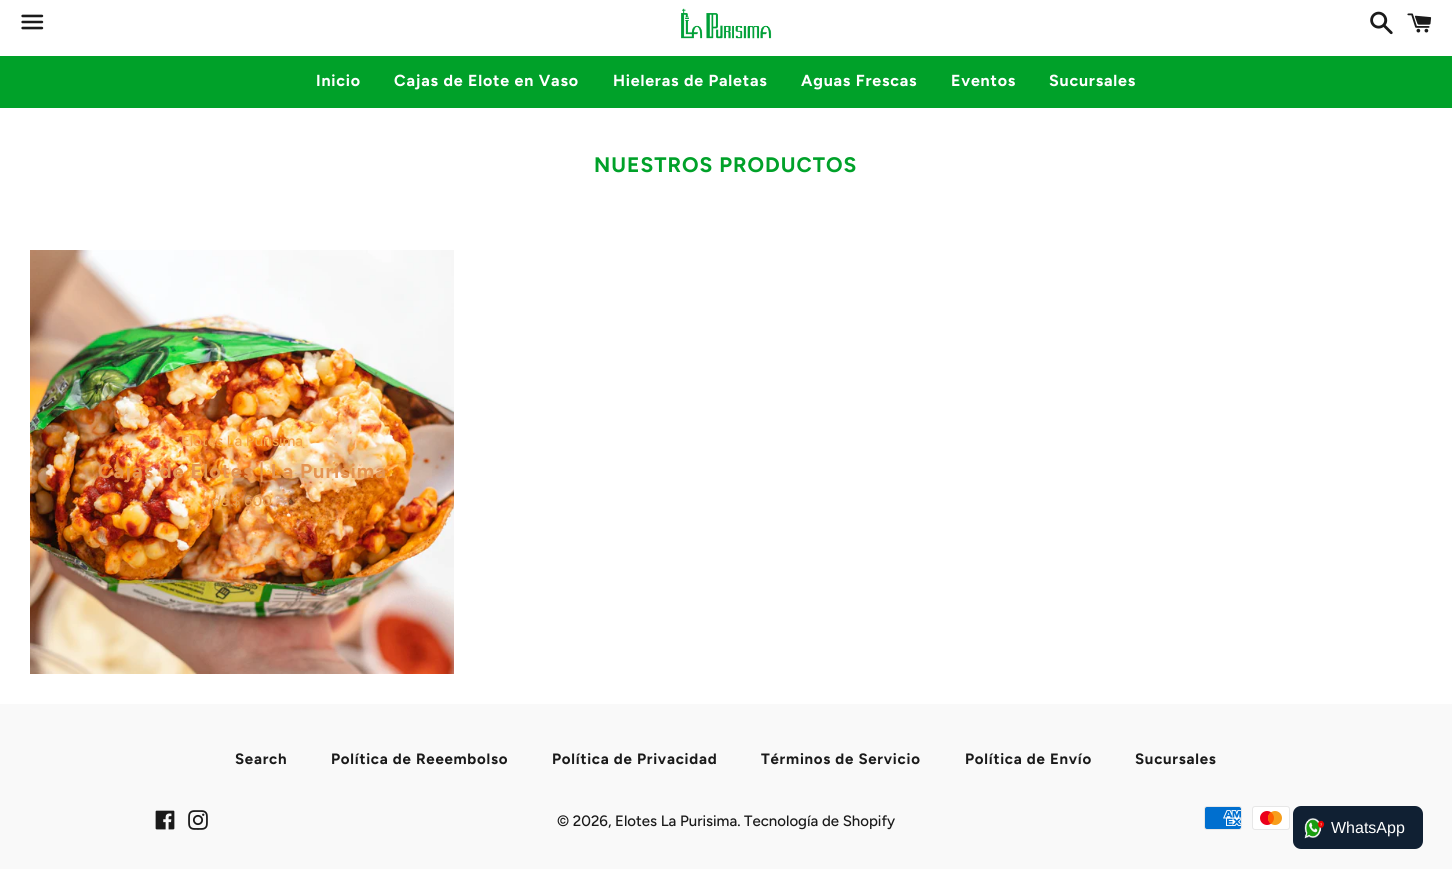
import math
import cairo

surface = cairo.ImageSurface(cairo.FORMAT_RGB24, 1452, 869)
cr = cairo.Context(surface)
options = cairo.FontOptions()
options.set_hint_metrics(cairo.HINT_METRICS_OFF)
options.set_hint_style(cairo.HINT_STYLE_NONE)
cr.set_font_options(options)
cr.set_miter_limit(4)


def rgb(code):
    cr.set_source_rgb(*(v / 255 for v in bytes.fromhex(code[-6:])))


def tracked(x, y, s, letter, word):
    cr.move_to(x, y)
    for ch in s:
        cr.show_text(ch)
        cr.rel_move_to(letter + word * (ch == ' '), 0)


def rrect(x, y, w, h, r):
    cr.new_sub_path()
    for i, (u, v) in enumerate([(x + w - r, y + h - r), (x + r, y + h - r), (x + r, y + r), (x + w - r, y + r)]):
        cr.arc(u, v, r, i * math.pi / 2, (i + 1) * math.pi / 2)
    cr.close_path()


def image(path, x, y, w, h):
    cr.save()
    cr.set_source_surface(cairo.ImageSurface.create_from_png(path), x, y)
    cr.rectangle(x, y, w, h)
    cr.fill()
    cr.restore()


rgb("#ffffff")
cr.paint()
image("img/1.png", 21, 14, 23, 16)
image("img/2.png", 681, 8, 91, 31)
image("img/3.png", 1370, 11, 23, 24)
image("img/4.png", 1407, 13, 25, 20)
rgb("#00a129")
cr.rectangle(0, 56, 1452, 52)
cr.fill()
image("img/5.png", 30, 250, 424, 424)
rgb("#f9f9f9")
cr.rectangle(0, 704, 1452, 165)
cr.fill()
image("img/6.png", 155, 810, 20, 20)
image("img/7.png", 188, 810, 20, 20)
image("img/8.png", 1204, 806, 38, 24)
image("img/9.png", 1252, 806, 38, 24)
rgb("#102033")
rrect(1293, 806, 130, 43, 8)
cr.fill()
image("img/10.png", 1304, 818, 21, 21)
cr.select_font_face("Figtree", cairo.FONT_SLANT_NORMAL, cairo.FONT_WEIGHT_BOLD)
cr.set_font_size(16)
rgb("#ffffff")
for x, y, s in [
    (316, 86, "Inicio"),
    (394, 86, "Cajas de Elote en Vaso"),
    (613, 86, "Hieleras de Paletas"),
    (801, 86, "Aguas Frescas"),
    (951, 86, "Eventos"),
    (1049, 86, "Sucursales"),
]:
    tracked(x, y, s, 0.8, 0)
cr.set_font_size(21)
rgb("#00a129")
tracked(594, 172, "NUESTROS PRODUCTOS", 1, 0)
cr.select_font_face("Figtree Medium")
cr.set_font_size(15)
rgb("#f3a34c")
cr.move_to(181, 446)
cr.show_text("Elotes La Purisima")
cr.select_font_face("Figtree", cairo.FONT_SLANT_NORMAL, cairo.FONT_WEIGHT_BOLD)
cr.set_font_size(20)
rgb("#e49452")
tracked(98, 478, "Cajas de Elotes | La Purisima", 1, 0)
cr.select_font_face("Figtree Medium", cairo.FONT_SLANT_ITALIC)
cr.set_font_size(15)
rgb("#e8a352")
cr.move_to(212, 506)
cr.show_text("de")
cr.select_font_face("Figtree Medium")
rgb("#e59a4d")
cr.move_to(232, 506)
cr.show_text("$ 600")
cr.select_font_face("Figtree", cairo.FONT_SLANT_NORMAL, cairo.FONT_WEIGHT_BOLD)
rgb("#1a1a1a")
for x, y, s in [
    (235, 764, "Search"),
    (331, 764, "Política de Reeembolso"),
    (552, 764, "Política de Privacidad"),
    (761, 764, "Términos de Servicio"),
    (965, 764, "Política de Envío"),
    (1135, 764, "Sucursales"),
]:
    tracked(x, y, s, 0.75, 0)
cr.select_font_face("Figtree Medium")
cr.move_to(557, 826)
cr.show_text("© 2026, Elotes La Purisima. Tecnología de Shopify")
cr.select_font_face("Liberation Sans")
cr.set_font_size(16)
rgb("#ffffff")
cr.move_to(1331, 833)
cr.show_text("WhatsApp")
surface.write_to_png("page.png")
